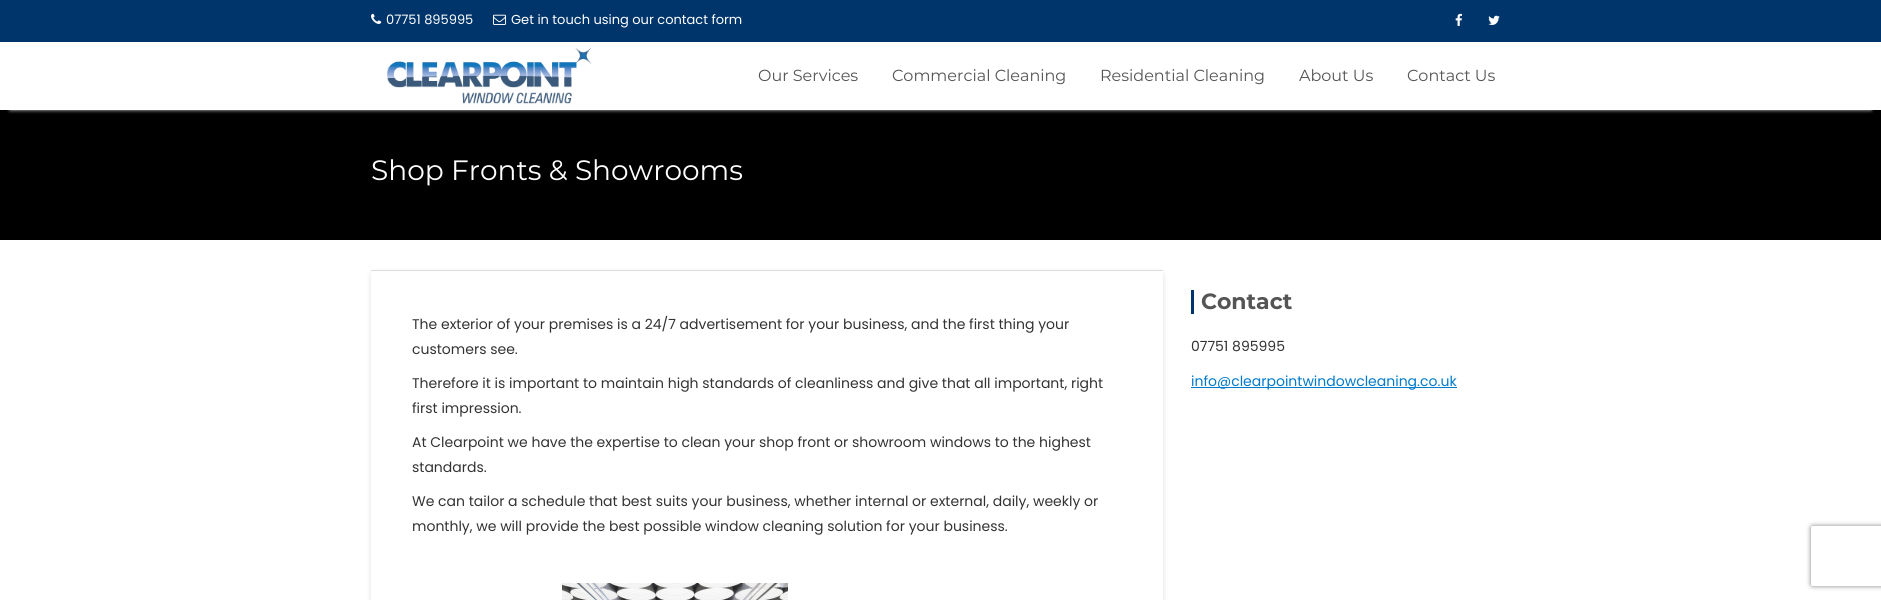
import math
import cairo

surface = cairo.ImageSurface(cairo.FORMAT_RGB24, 1881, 600)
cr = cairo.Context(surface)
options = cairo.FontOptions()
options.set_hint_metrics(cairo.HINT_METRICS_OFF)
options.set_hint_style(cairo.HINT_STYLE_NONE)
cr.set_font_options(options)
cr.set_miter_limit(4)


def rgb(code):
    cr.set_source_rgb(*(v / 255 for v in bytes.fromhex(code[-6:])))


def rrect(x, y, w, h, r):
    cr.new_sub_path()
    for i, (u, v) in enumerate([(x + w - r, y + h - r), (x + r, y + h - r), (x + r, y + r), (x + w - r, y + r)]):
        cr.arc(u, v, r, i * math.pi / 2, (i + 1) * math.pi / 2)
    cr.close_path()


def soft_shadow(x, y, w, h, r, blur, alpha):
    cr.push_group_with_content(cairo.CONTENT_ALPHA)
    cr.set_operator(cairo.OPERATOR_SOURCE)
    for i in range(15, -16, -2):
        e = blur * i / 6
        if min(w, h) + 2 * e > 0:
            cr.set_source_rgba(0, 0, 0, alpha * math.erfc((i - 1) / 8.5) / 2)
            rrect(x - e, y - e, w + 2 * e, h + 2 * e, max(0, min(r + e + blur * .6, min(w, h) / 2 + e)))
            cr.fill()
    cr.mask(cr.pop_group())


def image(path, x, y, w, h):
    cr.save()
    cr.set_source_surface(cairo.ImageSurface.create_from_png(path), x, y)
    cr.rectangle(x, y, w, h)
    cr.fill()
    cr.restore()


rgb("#ffffff")
cr.paint()
rgb("#00356b")
cr.rectangle(0, 0, 1881, 42)
cr.fill()
image("img/1.png", 371, 13, 11, 11)
image("img/2.png", 493, 14, 13, 11)
image("img/3.png", 1455, 13, 7, 13)
image("img/4.png", 1488, 15, 12, 10)
rgb("#000000")
cr.rectangle(0, 110, 1881, 130)
cr.fill()
cr.save()
cr.rectangle(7, 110, 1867, 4)
cr.clip()
rgb("#eeeeee")
soft_shadow(10, 62, 1861, 48, 0, 2, 0.9)
cr.restore()
image("img/5.png", 387, 47, 205, 57)
rgb("#000000")
soft_shadow(371, 272, 792, 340, 4, 2.5, 0.13)
rgb("#ffffff")
rrect(371, 270, 792, 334, 4)
cr.fill()
rgb("#dddddd")
cr.rectangle(371, 270, 792, 1)
cr.fill()
image("img/6.png", 562, 583, 226, 17)
rgb("#00356b")
cr.rectangle(1191, 290, 3, 24)
cr.fill()
rgb("#007acc")
cr.rectangle(1191, 387, 266, 1)
cr.fill()
cr.save()
cr.set_fill_rule(cairo.FILL_RULE_EVEN_ODD)
cr.new_path()
cr.move_to(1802, 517)
cr.line_to(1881, 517)
cr.line_to(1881, 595)
cr.line_to(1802, 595)
cr.close_path()
cr.move_to(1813, 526)
cr.line_to(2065, 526)
cr.curve_to(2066, 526, 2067, 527, 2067, 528)
cr.line_to(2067, 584)
cr.curve_to(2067, 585, 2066, 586, 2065, 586)
cr.line_to(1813, 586)
cr.curve_to(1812, 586, 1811, 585, 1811, 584)
cr.line_to(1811, 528)
cr.curve_to(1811, 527, 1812, 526, 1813, 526)
cr.close_path()
cr.clip()
rgb("#808080")
soft_shadow(1811, 526, 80, 60, 2, 2.5, 1)
cr.restore()
cr.select_font_face("Poppins")
cr.set_font_size(13)
rgb("#ffffff")
cr.move_to(386, 24)
cr.show_text("07751 895995")
cr.move_to(511, 24)
cr.show_text("Get in touch using our contact form")
cr.select_font_face("Montserrat")
cr.set_font_size(16)
rgb("#555555")
for x, y, s in [
    (758, 81, "Our Services"),
    (892, 81, "Commercial Cleaning"),
    (1100, 81, "Residential Cleaning"),
    (1299, 81, "About Us"),
    (1407, 81, "Contact Us"),
]:
    cr.move_to(x, y)
    cr.show_text(s)
cr.set_font_size(28)
rgb("#ffffff")
cr.move_to(371, 180)
cr.show_text("Shop Fronts & Showrooms")
cr.select_font_face("Poppins")
cr.set_font_size(14)
rgb("#333333")
for x, y, s in [
    (412, 329, "The exterior of your premises is a 24/7 advertisement for your business, and the first thing your"),
    (412, 354, "customers see."),
    (412, 388, "Therefore it is important to maintain high standards of cleanliness and give that all important, right"),
    (412, 413, "first impression."),
    (412, 447, "At Clearpoint we have the expertise to clean your shop front or showroom windows to the highest"),
    (412, 472, "standards."),
    (412, 506, "We can tailor a schedule that best suits your business, whether internal or external, daily, weekly or"),
    (412, 531, "monthly, we will provide the best possible window cleaning solution for your business."),
]:
    cr.move_to(x, y)
    cr.show_text(s)
cr.select_font_face("Montserrat", cairo.FONT_SLANT_NORMAL, cairo.FONT_WEIGHT_BOLD)
cr.set_font_size(22)
rgb("#555555")
cr.move_to(1201, 309)
cr.show_text("Contact")
cr.select_font_face("Poppins")
cr.set_font_size(14)
rgb("#333333")
cr.move_to(1191, 351)
cr.show_text("07751 895995")
rgb("#007acc")
cr.move_to(1191, 386)
cr.show_text("info@clearpointwindowcleaning.co.uk")
surface.write_to_png("page.png")
